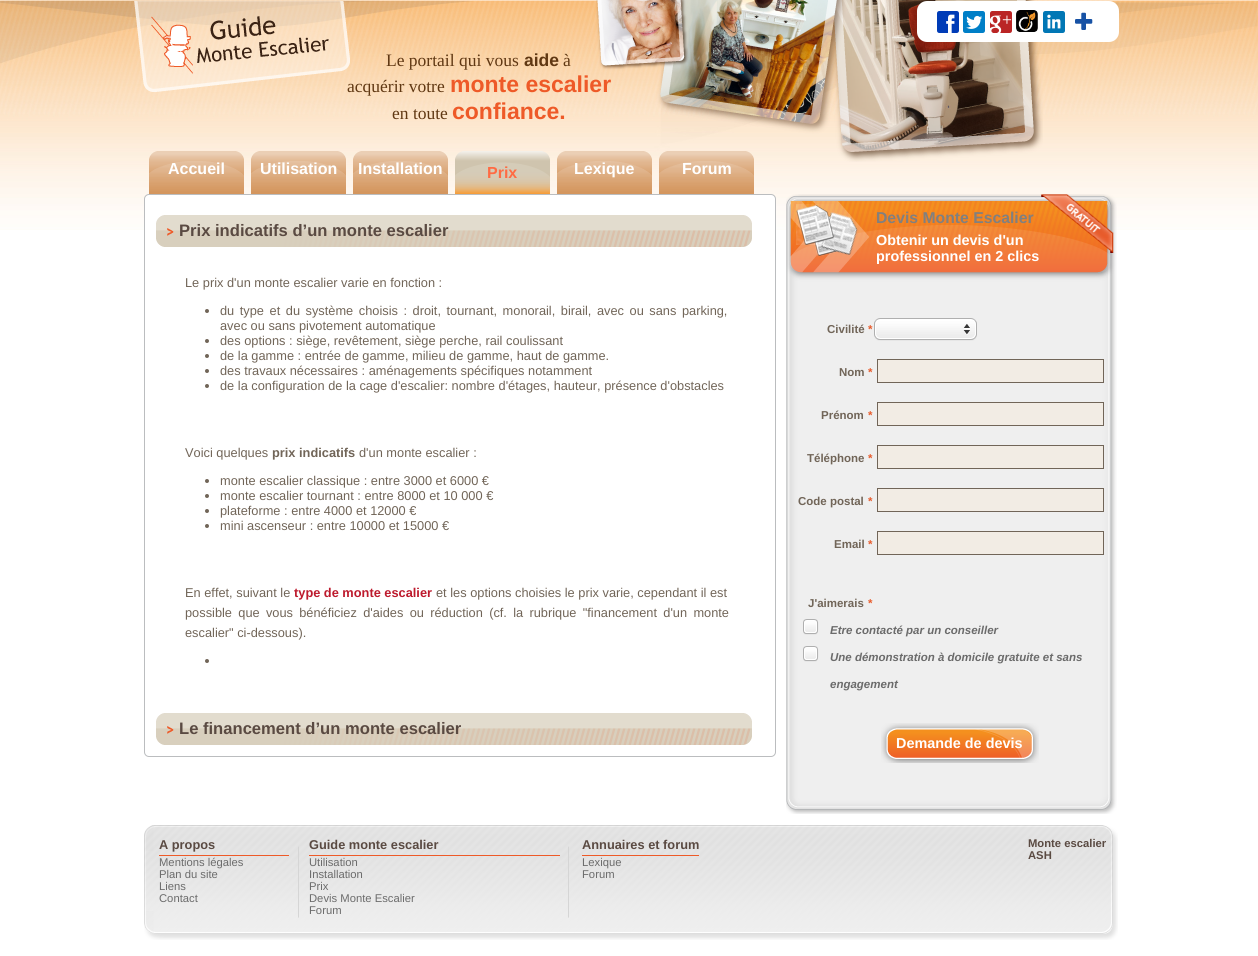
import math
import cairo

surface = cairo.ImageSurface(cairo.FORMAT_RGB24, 1258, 956)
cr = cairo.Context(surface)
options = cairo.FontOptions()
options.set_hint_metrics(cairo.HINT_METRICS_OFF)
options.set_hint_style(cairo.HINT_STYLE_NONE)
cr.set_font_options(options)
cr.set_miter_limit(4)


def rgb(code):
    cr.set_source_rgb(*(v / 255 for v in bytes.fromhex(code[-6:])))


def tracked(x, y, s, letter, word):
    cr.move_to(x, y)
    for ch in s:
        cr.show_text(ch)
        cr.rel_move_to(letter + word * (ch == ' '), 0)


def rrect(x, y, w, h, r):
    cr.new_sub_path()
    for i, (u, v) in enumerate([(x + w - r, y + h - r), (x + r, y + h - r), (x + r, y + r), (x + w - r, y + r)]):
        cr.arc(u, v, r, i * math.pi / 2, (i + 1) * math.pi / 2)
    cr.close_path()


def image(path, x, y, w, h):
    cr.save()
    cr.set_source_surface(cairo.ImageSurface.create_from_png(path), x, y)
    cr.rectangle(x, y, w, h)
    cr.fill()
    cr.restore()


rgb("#ffffff")
cr.paint()
image("img/1.png", 0, 0, 1258, 230)
image("img/2.png", 134, 1, 216, 91)
image("img/10.png", 149, 151, 95, 43)
image("img/10.png", 251, 151, 95, 43)
image("img/10.png", 353, 151, 95, 43)
image("img/11.png", 455, 151, 95, 43)
rgb("#ffffff")
rrect(144.5, 194.5, 631, 562, 4.5)
cr.fill_preserve()
rgb("#bbbdbf")
cr.set_line_width(1)
cr.stroke()
image("img/12.png", 156, 215, 596, 32)
rgb("#716558")
cr.arc(207, 311, 2, 0, 2 * math.pi)
cr.fill()
cr.arc(207, 341, 2, 0, 2 * math.pi)
cr.fill()
cr.arc(207, 356, 2, 0, 2 * math.pi)
cr.fill()
cr.arc(207, 371, 2, 0, 2 * math.pi)
cr.fill()
cr.arc(207, 386, 2, 0, 2 * math.pi)
cr.fill()
cr.arc(207, 481, 2, 0, 2 * math.pi)
cr.fill()
cr.arc(207, 496, 2, 0, 2 * math.pi)
cr.fill()
cr.arc(207, 511, 2, 0, 2 * math.pi)
cr.fill()
cr.arc(207, 526, 2, 0, 2 * math.pi)
cr.fill()
cr.arc(207, 661, 2, 0, 2 * math.pi)
cr.fill()
image("img/12.png", 156, 713, 596, 32)
image("img/13.png", 786, 194, 331, 620)
image("img/14.png", 796, 204, 38, 41)
image("img/15.png", 874, 318, 8, 23)
image("img/16.png", 882, 318, 95, 23)
rgb("#f2ece4")
cr.rectangle(877.5, 359.5, 226, 23)
cr.fill_preserve()
rgb("#716558")
cr.stroke()
rgb("#f2ece4")
cr.rectangle(877.5, 402.5, 226, 23)
cr.fill_preserve()
rgb("#716558")
cr.stroke()
rgb("#f2ece4")
cr.rectangle(877.5, 445.5, 226, 23)
cr.fill_preserve()
rgb("#716558")
cr.stroke()
rgb("#f2ece4")
cr.rectangle(877.5, 488.5, 226, 23)
cr.fill_preserve()
rgb("#716558")
cr.stroke()
rgb("#f2ece4")
cr.rectangle(877.5, 531.5, 226, 23)
cr.fill_preserve()
rgb("#716558")
cr.stroke()
image("img/17.png", 803, 619, 16, 16)
image("img/17.png", 803, 646, 16, 16)
image("img/18.png", 881, 723, 158, 40)
image("img/19.png", 144, 825, 974, 115)
for x, y, w, h, color in [
    (159, 855, 130, 1, "#ee5a28"),
    (309, 855, 251, 1, "#ee5a28"),
    (582, 855, 117, 1, "#ee5a28"),
]:
    rgb(color)
    cr.rectangle(x, y, w, h)
    cr.fill()
cr.select_font_face("Liberation Serif")
cr.set_font_size(17.5)
rgb("#603813")
cr.move_to(386, 66)
cr.show_text("Le portail qui vous")
cr.select_font_face("Liberation Sans", cairo.FONT_SLANT_NORMAL, cairo.FONT_WEIGHT_BOLD)
cr.move_to(524, 66)
cr.show_text("aide")
cr.select_font_face("Liberation Serif")
cr.move_to(563, 66)
cr.show_text("à")
cr.move_to(347, 92)
cr.show_text("acquérir votre")
cr.select_font_face("Liberation Sans", cairo.FONT_SLANT_NORMAL, cairo.FONT_WEIGHT_BOLD)
cr.set_font_size(23)
rgb("#ee5a28")
cr.move_to(450, 92)
cr.show_text("monte escalier")
image("img/3.png", 596, 0, 447, 162)
rgb("#ffffff")
rrect(917, 1, 202, 41, 10)
cr.fill()
image("img/9.png", 1075, 12, 18, 18)
image("img/7.png", 1016, 10, 22, 22)
image("img/8.png", 1043, 11, 22, 22)
image("img/6.png", 990, 11, 22, 22)
image("img/5.png", 963, 11, 22, 22)
image("img/4.png", 937, 11, 22, 22)
cr.select_font_face("Liberation Serif")
cr.set_font_size(17.5)
rgb("#603813")
cr.move_to(392, 119)
cr.show_text("en toute")
cr.select_font_face("Liberation Sans", cairo.FONT_SLANT_NORMAL, cairo.FONT_WEIGHT_BOLD)
cr.set_font_size(23)
rgb("#ee5a28")
cr.move_to(452, 119)
cr.show_text("confiance.")
cr.set_font_size(16)
rgb("#ffffff")
for x, y, s in [
    (168, 174, "Accueil"),
    (260, 174, "Utilisation"),
    (358, 174, "Installation"),
]:
    cr.move_to(x, y)
    cr.show_text(s)
rgb("#ff6b43")
cr.move_to(487, 178)
cr.show_text("Prix")
image("img/10.png", 557, 151, 95, 43)
rgb("#ffffff")
cr.move_to(574, 174)
cr.show_text("Lexique")
image("img/10.png", 659, 151, 95, 43)
cr.move_to(682, 174)
cr.show_text("Forum")
cr.set_font_size(16.6)
rgb("#5a4a42")
cr.move_to(179, 236)
cr.show_text("Prix indicatifs d’un monte escalier")
cr.select_font_face("Liberation Sans")
cr.set_font_size(12.8)
rgb("#716558")
cr.move_to(185, 287)
cr.show_text("Le prix d'un monte escalier varie en fonction :")
tracked(220, 315, "du type et du système choisis : droit, tournant, monorail, birail, avec ou sans parking,", 0, 2)
for x, y, s in [
    (220, 330, "avec ou sans pivotement automatique"),
    (220, 345, "des options : siège, revêtement, siège perche, rail coulissant"),
    (220, 360, "de la gamme : entrée de gamme, milieu de gamme, haut de gamme."),
    (220, 375, "des travaux nécessaires : aménagements spécifiques notamment"),
    (220, 390, "de la configuration de la cage d'escalier: nombre d'étages, hauteur, présence d'obstacles"),
    (185, 457, "Voici quelques"),
]:
    cr.move_to(x, y)
    cr.show_text(s)
cr.select_font_face("Liberation Sans", cairo.FONT_SLANT_NORMAL, cairo.FONT_WEIGHT_BOLD)
cr.move_to(272, 457)
cr.show_text("prix indicatifs")
cr.select_font_face("Liberation Sans")
for x, y, s in [
    (359, 457, "d'un monte escalier :"),
    (220, 485, "monte escalier classique : entre 3000 et 6000 €"),
    (220, 500, "monte escalier tournant : entre 8000 et 10 000 €"),
    (220, 515, "plateforme : entre 4000 et 12000 €"),
    (220, 530, "mini ascenseur : entre 10000 et 15000 €"),
    (185, 597, "En effet, suivant le"),
]:
    cr.move_to(x, y)
    cr.show_text(s)
cr.select_font_face("Liberation Sans", cairo.FONT_SLANT_NORMAL, cairo.FONT_WEIGHT_BOLD)
rgb("#bd1a2d")
cr.move_to(294, 597)
cr.show_text("type de monte escalier")
cr.select_font_face("Liberation Sans")
rgb("#716558")
cr.move_to(436, 597)
cr.show_text("et les options choisies le prix varie, cependant il est")
tracked(185, 617, "possible que vous bénéficiez d'aides ou réduction (cf. la rubrique \"financement d'un monte", 0, 2.75)
cr.move_to(185, 637)
cr.show_text("escalier\" ci-dessous).")
cr.select_font_face("Liberation Sans", cairo.FONT_SLANT_NORMAL, cairo.FONT_WEIGHT_BOLD)
cr.set_font_size(16.6)
rgb("#5a4a42")
cr.move_to(179, 734)
cr.show_text("Le financement d’un monte escalier")
cr.set_font_size(15.75)
rgb("#808080")
cr.move_to(876, 223)
cr.show_text("Devis Monte Escalier")
cr.set_font_size(14.4)
rgb("#ffffff")
cr.move_to(876, 245)
cr.show_text("Obtenir un devis d'un")
cr.move_to(876, 261)
cr.show_text("professionnel en 2 clics")
cr.set_font_size(11.5)
rgb("#716558")
cr.move_to(827, 333)
cr.show_text("Civilité")
rgb("#e85c2c")
cr.move_to(868, 333)
cr.show_text("*")
rgb("#716558")
cr.move_to(839, 376)
cr.show_text("Nom")
rgb("#e85c2c")
cr.move_to(868, 376)
cr.show_text("*")
rgb("#716558")
cr.move_to(821, 419)
cr.show_text("Prénom")
rgb("#e85c2c")
cr.move_to(868, 419)
cr.show_text("*")
rgb("#716558")
cr.move_to(807, 462)
cr.show_text("Téléphone")
rgb("#e85c2c")
cr.move_to(868, 462)
cr.show_text("*")
rgb("#716558")
cr.move_to(798, 505)
cr.show_text("Code postal")
rgb("#e85c2c")
cr.move_to(868, 505)
cr.show_text("*")
rgb("#716558")
cr.move_to(834, 548)
cr.show_text("Email")
rgb("#e85c2c")
cr.move_to(868, 548)
cr.show_text("*")
rgb("#716558")
cr.move_to(808, 607)
cr.show_text("J'aimerais")
rgb("#e85c2c")
cr.move_to(868, 607)
cr.show_text("*")
cr.select_font_face("Liberation Sans", cairo.FONT_SLANT_ITALIC, cairo.FONT_WEIGHT_BOLD)
rgb("#6b6b6b")
for x, y, s in [
    (830, 634, "Etre contacté par un conseiller"),
    (830, 661, "Une démonstration à domicile gratuite et sans"),
    (830, 688, "engagement"),
]:
    cr.move_to(x, y)
    cr.show_text(s)
cr.select_font_face("Liberation Sans", cairo.FONT_SLANT_NORMAL, cairo.FONT_WEIGHT_BOLD)
cr.set_font_size(14.4)
rgb("#ffffff")
cr.move_to(896, 748)
cr.show_text("Demande de devis")
cr.set_font_size(12.8)
rgb("#5a4a42")
cr.move_to(159, 849)
cr.show_text("A propos")
cr.select_font_face("Liberation Sans")
cr.set_font_size(11.25)
rgb("#6b6b6b")
for x, y, s in [
    (159, 866, "Mentions légales"),
    (159, 878, "Plan du site"),
    (159, 890, "Liens"),
    (159, 902, "Contact"),
]:
    cr.move_to(x, y)
    cr.show_text(s)
cr.select_font_face("Liberation Sans", cairo.FONT_SLANT_NORMAL, cairo.FONT_WEIGHT_BOLD)
cr.set_font_size(12.8)
rgb("#5a4a42")
cr.move_to(309, 849)
cr.show_text("Guide monte escalier")
cr.select_font_face("Liberation Sans")
cr.set_font_size(11.25)
rgb("#6b6b6b")
for x, y, s in [
    (309, 866, "Utilisation"),
    (309, 878, "Installation"),
    (309, 890, "Prix"),
    (309, 902, "Devis Monte Escalier"),
    (309, 914, "Forum"),
]:
    cr.move_to(x, y)
    cr.show_text(s)
cr.select_font_face("Liberation Sans", cairo.FONT_SLANT_NORMAL, cairo.FONT_WEIGHT_BOLD)
cr.set_font_size(12.8)
rgb("#5a4a42")
cr.move_to(582, 849)
cr.show_text("Annuaires et forum")
cr.select_font_face("Liberation Sans")
cr.set_font_size(11.25)
rgb("#6b6b6b")
cr.move_to(582, 866)
cr.show_text("Lexique")
cr.move_to(582, 878)
cr.show_text("Forum")
cr.select_font_face("Liberation Sans", cairo.FONT_SLANT_NORMAL, cairo.FONT_WEIGHT_BOLD)
rgb("#5a4a42")
cr.move_to(1028, 847)
cr.show_text("Monte escalier")
cr.move_to(1028, 859)
cr.show_text("ASH")
surface.write_to_png("page.png")
